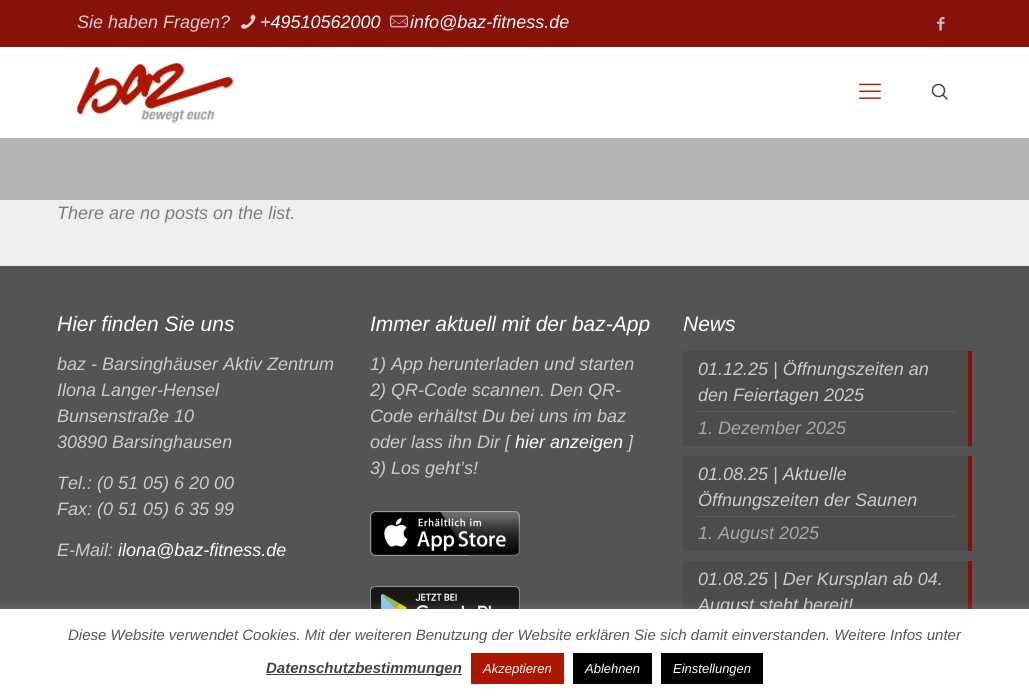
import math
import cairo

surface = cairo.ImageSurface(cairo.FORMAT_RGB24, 1029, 696)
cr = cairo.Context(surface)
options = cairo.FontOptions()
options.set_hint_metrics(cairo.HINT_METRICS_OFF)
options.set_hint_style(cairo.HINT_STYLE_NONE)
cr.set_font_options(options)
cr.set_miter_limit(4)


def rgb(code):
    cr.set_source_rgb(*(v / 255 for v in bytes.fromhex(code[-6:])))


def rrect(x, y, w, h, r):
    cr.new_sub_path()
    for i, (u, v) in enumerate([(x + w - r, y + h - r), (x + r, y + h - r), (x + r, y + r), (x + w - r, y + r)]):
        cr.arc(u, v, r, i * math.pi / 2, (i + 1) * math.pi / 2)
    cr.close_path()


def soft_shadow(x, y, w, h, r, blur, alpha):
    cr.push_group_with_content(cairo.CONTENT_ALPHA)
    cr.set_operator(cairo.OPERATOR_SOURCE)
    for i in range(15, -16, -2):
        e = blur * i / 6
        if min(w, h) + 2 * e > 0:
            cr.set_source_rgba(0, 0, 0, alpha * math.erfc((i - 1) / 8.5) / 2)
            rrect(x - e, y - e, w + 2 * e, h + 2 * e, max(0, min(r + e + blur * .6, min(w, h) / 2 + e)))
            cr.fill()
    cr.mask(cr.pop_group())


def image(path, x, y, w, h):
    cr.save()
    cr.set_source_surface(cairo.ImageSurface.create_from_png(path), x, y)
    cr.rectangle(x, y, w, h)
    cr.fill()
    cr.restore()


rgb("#efefef")
cr.paint()
rgb("#87120a")
cr.rectangle(0, 0, 1029, 47)
cr.fill()
image("img/1.png", 241, 14, 15, 15)
image("img/2.png", 390, 15, 18, 13)
image("img/3.png", 937, 17, 8, 14)
rgb("#ffffff")
cr.rectangle(0, 47, 1029, 91)
cr.fill()
image("img/4.png", 77, 63, 156, 60)
image("img/5.png", 859, 83, 22, 16)
cr.arc(938.5, 90.5, 6, 0, 2 * math.pi)
rgb("#444444")
cr.set_line_width(1.5)
cr.stroke()
cr.new_path()
cr.move_to(942.5, 94.5)
cr.line_to(947.5, 99.5)
cr.stroke()
rgb("#b3b3b3")
cr.rectangle(0, 138, 1029, 62)
cr.fill()
rgb("#545454")
cr.rectangle(0, 266, 1029, 343)
cr.fill()
image("img/6.png", 370, 511, 150, 45)
image("img/7.png", 370, 586, 150, 23)
for x, y, w, h, color in [
    (683, 351, 285, 95, "#4c4c4c"),
    (698, 411, 259, 1, "#5a5a5a"),
    (968, 351, 4, 95, "#87120a"),
    (683, 456, 285, 95, "#4c4c4c"),
    (698, 516, 259, 1, "#5a5a5a"),
    (968, 456, 4, 95, "#87120a"),
    (683, 561, 285, 48, "#4c4c4c"),
    (968, 561, 4, 48, "#87120a"),
]:
    rgb(color)
    cr.rectangle(x, y, w, h)
    cr.fill()
rgb("#acabab")
soft_shadow(0, 608, 1029, 87, 0, 5, 0.3)
cr.select_font_face("Liberation Sans", cairo.FONT_SLANT_ITALIC)
cr.set_font_size(18)
rgb("#e7d0ce")
cr.move_to(77, 28)
cr.show_text("Sie haben Fragen?")
rgb("#ffffff")
cr.move_to(260, 28)
cr.show_text("+49510562000")
cr.move_to(410, 28)
cr.show_text("info@baz-fitness.de")
rgb("#7c7c7c")
cr.move_to(57, 219)
cr.show_text("There are no posts on the list.")
cr.set_font_size(21)
rgb("#ffffff")
cr.move_to(57, 331)
cr.show_text("Hier finden Sie uns")
cr.set_font_size(18)
rgb("#cccccc")
for x, y, s in [
    (57, 370, "baz - Barsinghäuser Aktiv Zentrum"),
    (57, 396, "Ilona Langer-Hensel"),
    (57, 422, "Bunsenstraße 10"),
    (57, 448, "30890 Barsinghausen"),
    (57, 489, "Tel.: (0 51 05) 6 20 00"),
    (57, 515, "Fax: (0 51 05) 6 35 99"),
    (57, 556, "E-Mail:"),
]:
    cr.move_to(x, y)
    cr.show_text(s)
rgb("#ffffff")
cr.move_to(118, 556)
cr.show_text("ilona@baz-fitness.de")
cr.set_font_size(21)
cr.move_to(370, 331)
cr.show_text("Immer aktuell mit der baz-App")
cr.set_font_size(18)
rgb("#cccccc")
for x, y, s in [
    (370, 370, "1) App herunterladen und starten"),
    (370, 396, "2) QR-Code scannen. Den QR-"),
    (370, 422, "Code erhältst Du bei uns im baz"),
    (370, 448, "oder lass ihn Dir ["),
]:
    cr.move_to(x, y)
    cr.show_text(s)
rgb("#ffffff")
cr.move_to(515, 448)
cr.show_text("hier anzeigen")
rgb("#cccccc")
cr.move_to(628, 448)
cr.show_text("]")
cr.move_to(370, 474)
cr.show_text("3) Los geht’s!")
cr.set_font_size(21)
rgb("#ffffff")
cr.move_to(683, 331)
cr.show_text("News")
cr.set_font_size(18)
rgb("#cccccc")
cr.move_to(698, 375)
cr.show_text("01.12.25 | Öffnungszeiten an")
cr.move_to(698, 401)
cr.show_text("den Feiertagen 2025")
rgb("#a8a8a8")
cr.move_to(698, 434)
cr.show_text("1. Dezember 2025")
rgb("#cccccc")
cr.move_to(698, 480)
cr.show_text("01.08.25 | Aktuelle")
cr.move_to(698, 506)
cr.show_text("Öffnungszeiten der Saunen")
rgb("#a8a8a8")
cr.move_to(698, 539)
cr.show_text("1. August 2025")
rgb("#cccccc")
cr.move_to(698, 585)
cr.show_text("01.08.25 | Der Kursplan ab 04.")
cr.move_to(698, 611)
cr.show_text("August steht bereit!")
rgb("#ffffff")
cr.rectangle(0, 609, 1029, 87)
cr.fill()
cr.set_font_size(15)
rgb("#565656")
cr.move_to(68, 640)
cr.show_text("Diese Website verwendet Cookies. Mit der weiteren Benutzung der Website erklären Sie sich damit einverstanden. Weitere Infos unter")
rgb("#444444")
cr.rectangle(266, 674, 196, 1)
cr.fill()
cr.select_font_face("Liberation Sans", cairo.FONT_SLANT_ITALIC, cairo.FONT_WEIGHT_BOLD)
cr.move_to(266, 673)
cr.show_text("Datenschutzbestimmungen")
rgb("#ac1600")
cr.rectangle(471, 653, 93, 31)
cr.fill()
cr.select_font_face("Liberation Sans", cairo.FONT_SLANT_ITALIC)
cr.set_font_size(13)
rgb("#ffffff")
cr.move_to(483, 673)
cr.show_text("Akzeptieren")
rgb("#000000")
cr.rectangle(573, 653, 79, 31)
cr.fill()
rgb("#ffffff")
cr.move_to(585, 673)
cr.show_text("Ablehnen")
rgb("#000000")
cr.rectangle(661, 653, 102, 31)
cr.fill()
rgb("#ffffff")
cr.move_to(673, 673)
cr.show_text("Einstellungen")
surface.write_to_png("page.png")
